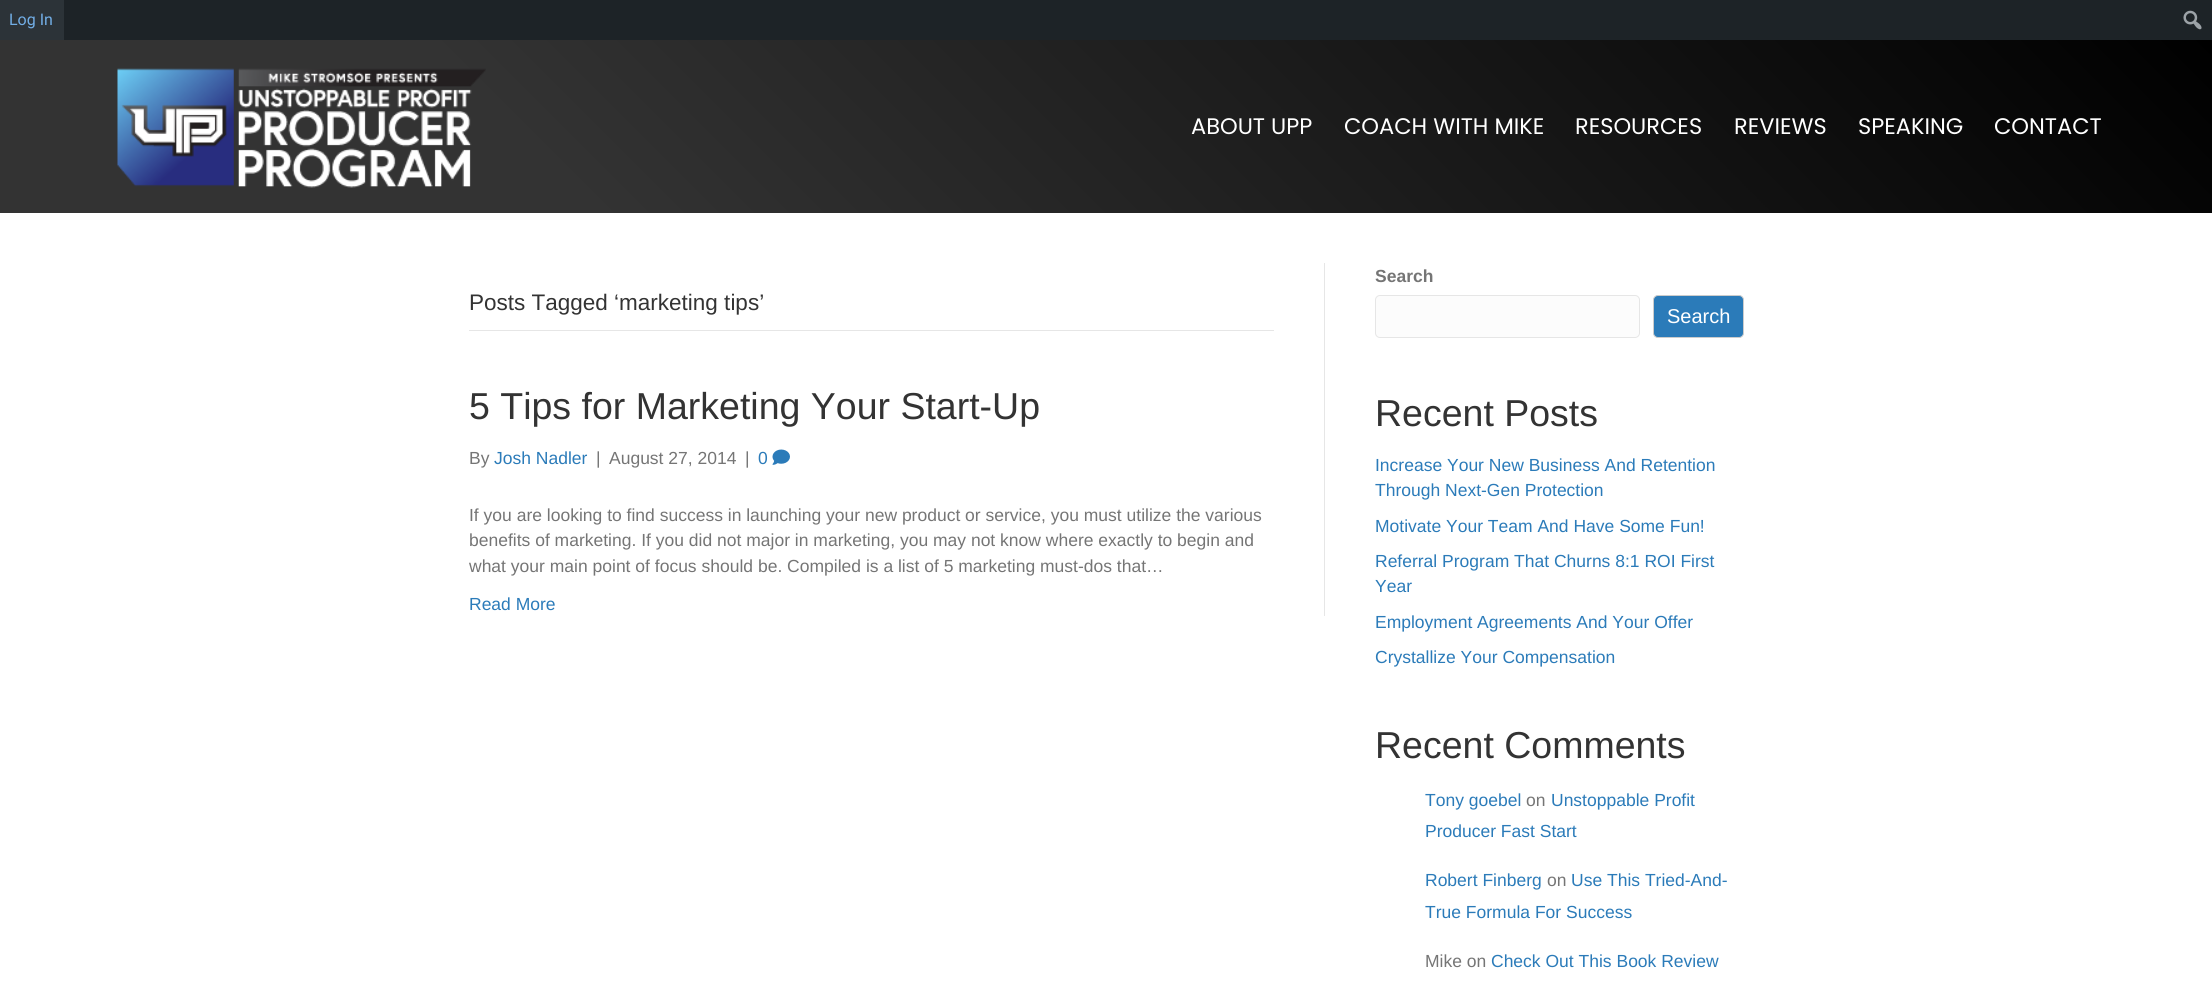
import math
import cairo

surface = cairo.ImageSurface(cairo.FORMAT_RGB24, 2212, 1002)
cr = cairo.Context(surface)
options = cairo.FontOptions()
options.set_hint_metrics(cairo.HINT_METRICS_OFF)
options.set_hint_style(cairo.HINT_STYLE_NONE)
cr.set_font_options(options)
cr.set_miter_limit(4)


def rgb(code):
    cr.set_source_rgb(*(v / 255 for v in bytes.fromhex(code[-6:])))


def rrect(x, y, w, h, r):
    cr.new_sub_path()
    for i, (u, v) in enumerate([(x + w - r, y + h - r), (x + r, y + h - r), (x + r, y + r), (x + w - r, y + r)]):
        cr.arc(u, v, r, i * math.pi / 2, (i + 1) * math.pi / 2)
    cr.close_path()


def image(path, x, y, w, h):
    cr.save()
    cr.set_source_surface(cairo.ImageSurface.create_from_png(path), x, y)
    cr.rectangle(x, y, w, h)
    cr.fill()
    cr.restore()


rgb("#ffffff")
cr.paint()
rgb("#1d2327")
cr.rectangle(64, 0, 2148, 40)
cr.fill()
rgb("#2c3338")
cr.rectangle(0, 0, 64, 40)
cr.fill()
image("img/1.png", 2183, 10, 19, 20)
gradient = cairo.LinearGradient(510, 723, 1703, -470)
gradient.add_color_stop_rgba(0.25, 0.2, 0.2, 0.2, 1)
gradient.add_color_stop_rgba(1, 0, 0, 0, 1)
cr.set_source(gradient)
cr.rectangle(0, 40, 2212, 173)
cr.fill()
image("img/2.png", 117, 68, 369, 120)
rgb("#e6e6e6")
cr.rectangle(1324, 263, 1, 353)
cr.fill()
cr.rectangle(469, 330, 805, 1)
cr.fill()
image("img/3.png", 772, 449, 18, 16)
rgb("#fcfcfc")
rrect(1375.5, 295.5, 264, 42, 4.5)
cr.fill_preserve()
rgb("#e6e6e6")
cr.set_line_width(1)
cr.stroke()
rgb("#2b7bb9")
rrect(1653.5, 295.5, 90, 42, 4.5)
cr.fill_preserve()
rgb("#cccccc")
cr.stroke()
cr.select_font_face("Roboto")
cr.set_font_size(16)
rgb("#72aee6")
cr.move_to(9, 25)
cr.show_text("Log In")
cr.select_font_face("Poppins")
cr.set_font_size(22.5)
rgb("#ffffff")
for x, y, s in [
    (1191, 134, "ABOUT UPP"),
    (1344, 134, "COACH WITH MIKE"),
    (1575, 134, "RESOURCES"),
    (1734, 134, "REVIEWS"),
    (1858, 134, "SPEAKING"),
    (1994, 134, "CONTACT"),
]:
    cr.move_to(x, y)
    cr.show_text(s)
cr.select_font_face("Liberation Sans")
rgb("#333333")
cr.move_to(469, 310)
cr.show_text("Posts Tagged ‘marketing tips’")
cr.set_font_size(37.5)
cr.move_to(469, 419)
cr.show_text("5 Tips for Marketing Your Start-Up")
cr.set_font_size(17.5)
rgb("#757575")
cr.move_to(469, 464)
cr.show_text("By")
rgb("#2b7bb9")
cr.move_to(494, 464)
cr.show_text("Josh Nadler")
rgb("#757575")
for x, y, s in [
    (596, 464, "|"),
    (609, 464, "August 27, 2014"),
    (745, 464, "|"),
]:
    cr.move_to(x, y)
    cr.show_text(s)
rgb("#2b7bb9")
cr.move_to(758, 464)
cr.show_text("0")
rgb("#757575")
for x, y, s in [
    (469, 521, "If you are looking to find success in launching your new product or service, you must utilize the various"),
    (469, 546, "benefits of marketing. If you did not major in marketing, you may not know where exactly to begin and"),
    (469, 572, "what your main point of focus should be. Compiled is a list of 5 marketing must-dos that…"),
]:
    cr.move_to(x, y)
    cr.show_text(s)
rgb("#2b7bb9")
cr.move_to(469, 610)
cr.show_text("Read More")
cr.select_font_face("Liberation Sans", cairo.FONT_SLANT_NORMAL, cairo.FONT_WEIGHT_BOLD)
rgb("#757575")
cr.move_to(1375, 282)
cr.show_text("Search")
cr.select_font_face("Liberation Sans")
cr.set_font_size(20)
rgb("#ffffff")
cr.move_to(1667, 323)
cr.show_text("Search")
cr.set_font_size(37.5)
rgb("#333333")
cr.move_to(1375, 426)
cr.show_text("Recent Posts")
cr.set_font_size(17.5)
rgb("#2b7bb9")
for x, y, s in [
    (1375, 471, "Increase Your New Business And Retention"),
    (1375, 496, "Through Next-Gen Protection"),
    (1375, 532, "Motivate Your Team And Have Some Fun!"),
    (1375, 567, "Referral Program That Churns 8:1 ROI First"),
    (1375, 592, "Year"),
    (1375, 628, "Employment Agreements And Your Offer"),
    (1375, 663, "Crystallize Your Compensation"),
]:
    cr.move_to(x, y)
    cr.show_text(s)
cr.set_font_size(37.5)
rgb("#333333")
cr.move_to(1375, 758)
cr.show_text("Recent Comments")
cr.set_font_size(17.5)
rgb("#2b7bb9")
cr.move_to(1425, 806)
cr.show_text("Tony goebel")
rgb("#757575")
cr.move_to(1526, 806)
cr.show_text("on")
rgb("#2b7bb9")
for x, y, s in [
    (1551, 806, "Unstoppable Profit"),
    (1425, 837, "Producer Fast Start"),
    (1425, 886, "Robert Finberg"),
]:
    cr.move_to(x, y)
    cr.show_text(s)
rgb("#757575")
cr.move_to(1547, 886)
cr.show_text("on")
rgb("#2b7bb9")
cr.move_to(1571, 886)
cr.show_text("Use This Tried-And-")
cr.move_to(1425, 918)
cr.show_text("True Formula For Success")
rgb("#757575")
cr.move_to(1425, 967)
cr.show_text("Mike on")
rgb("#2b7bb9")
cr.move_to(1491, 967)
cr.show_text("Check Out This Book Review")
surface.write_to_png("page.png")
